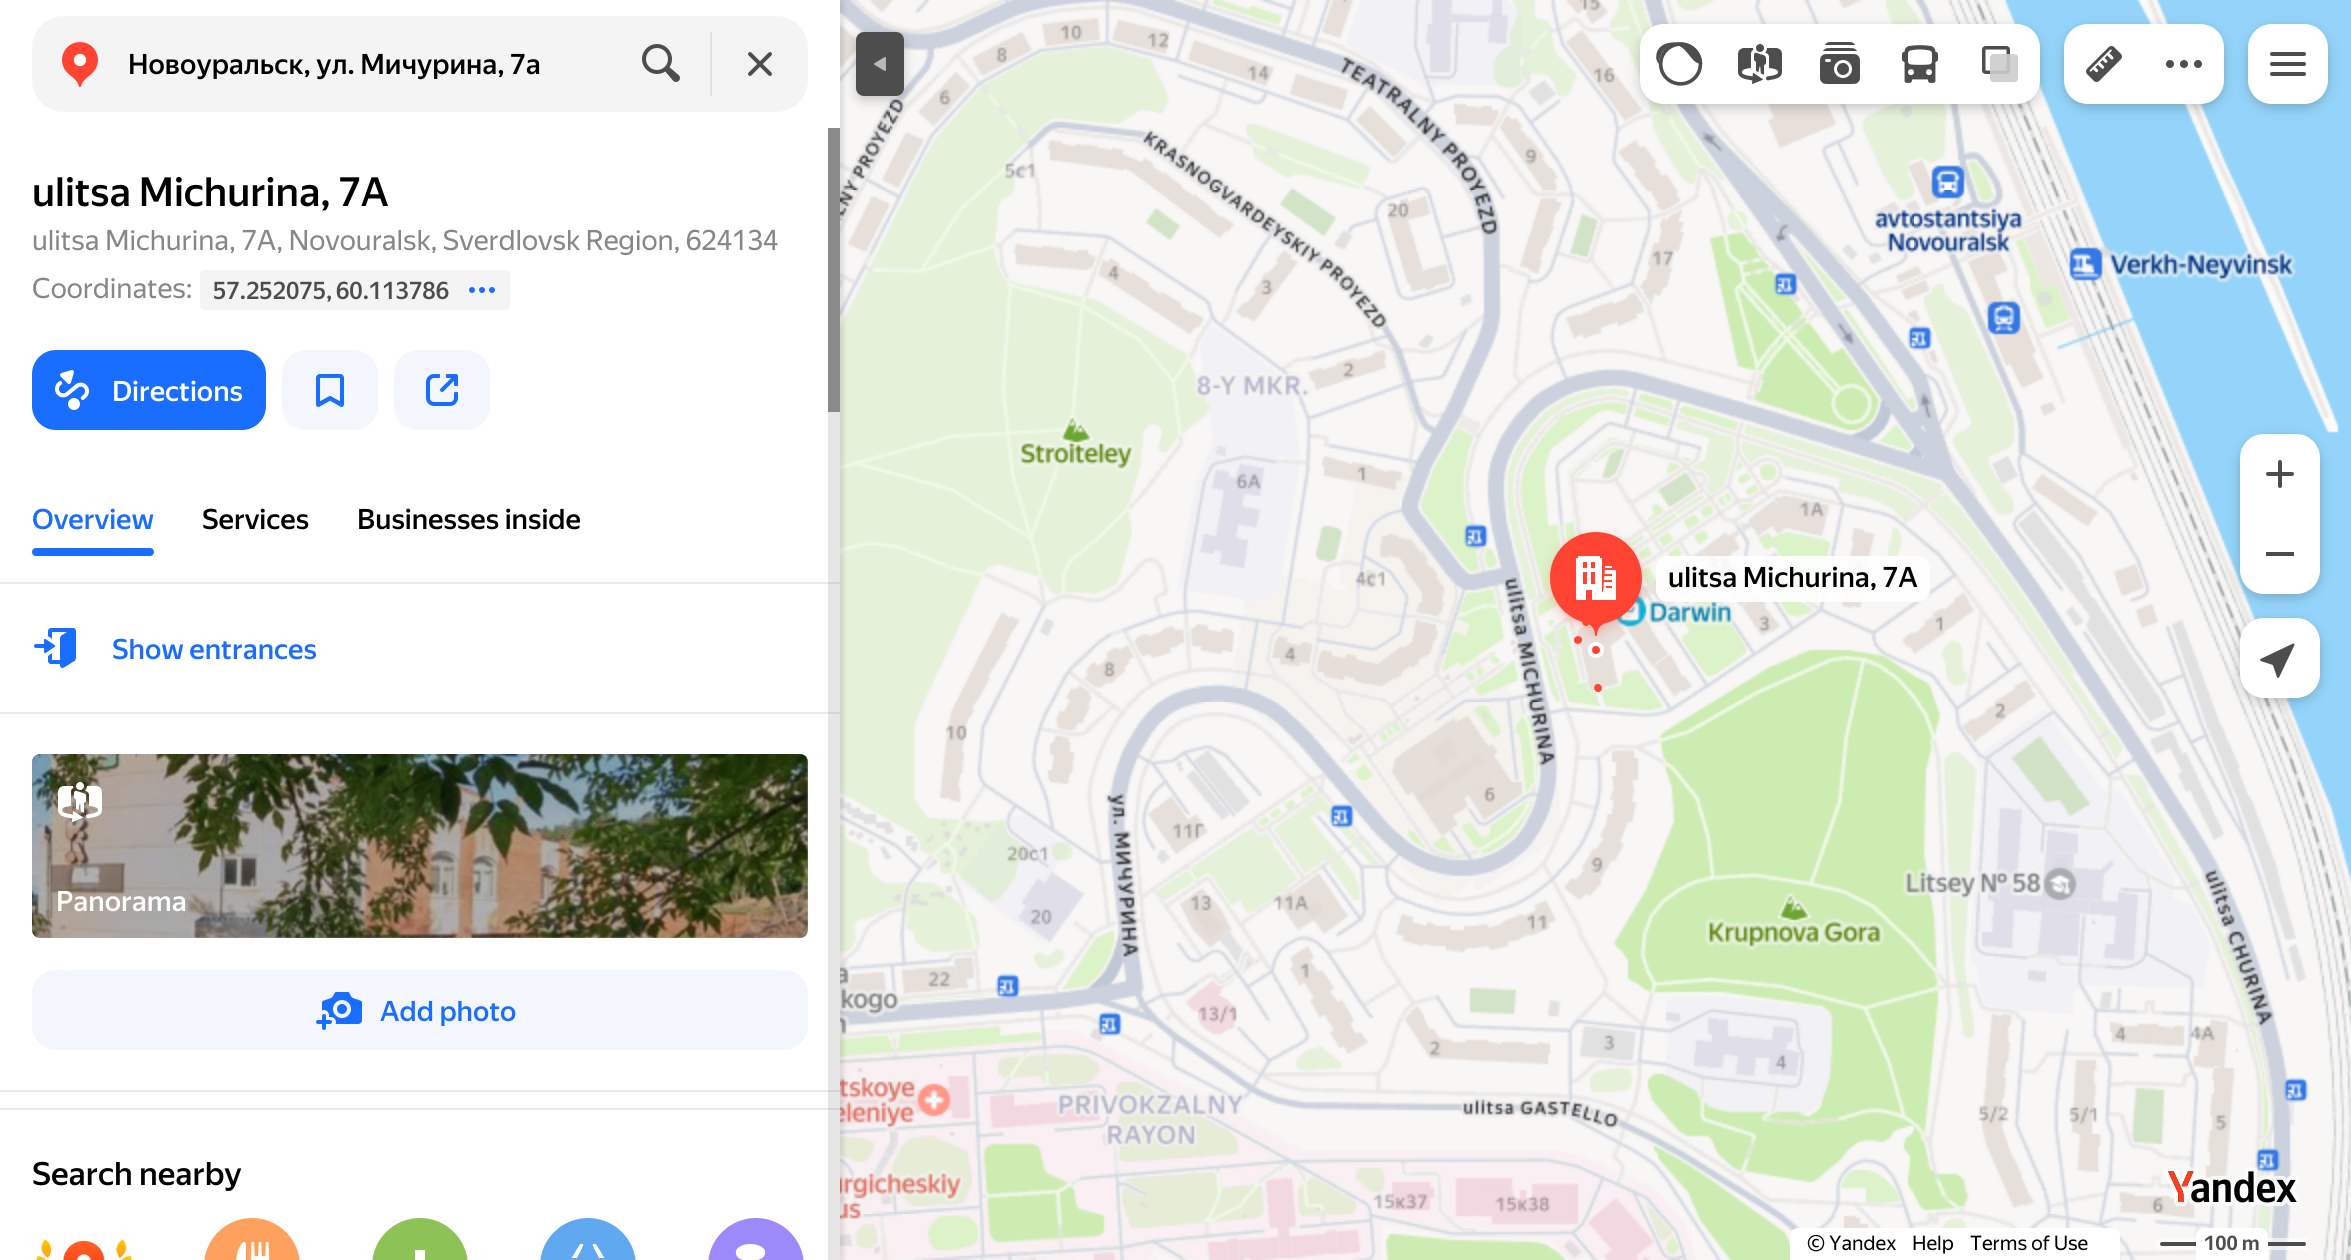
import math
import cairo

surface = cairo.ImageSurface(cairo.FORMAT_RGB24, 2351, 1260)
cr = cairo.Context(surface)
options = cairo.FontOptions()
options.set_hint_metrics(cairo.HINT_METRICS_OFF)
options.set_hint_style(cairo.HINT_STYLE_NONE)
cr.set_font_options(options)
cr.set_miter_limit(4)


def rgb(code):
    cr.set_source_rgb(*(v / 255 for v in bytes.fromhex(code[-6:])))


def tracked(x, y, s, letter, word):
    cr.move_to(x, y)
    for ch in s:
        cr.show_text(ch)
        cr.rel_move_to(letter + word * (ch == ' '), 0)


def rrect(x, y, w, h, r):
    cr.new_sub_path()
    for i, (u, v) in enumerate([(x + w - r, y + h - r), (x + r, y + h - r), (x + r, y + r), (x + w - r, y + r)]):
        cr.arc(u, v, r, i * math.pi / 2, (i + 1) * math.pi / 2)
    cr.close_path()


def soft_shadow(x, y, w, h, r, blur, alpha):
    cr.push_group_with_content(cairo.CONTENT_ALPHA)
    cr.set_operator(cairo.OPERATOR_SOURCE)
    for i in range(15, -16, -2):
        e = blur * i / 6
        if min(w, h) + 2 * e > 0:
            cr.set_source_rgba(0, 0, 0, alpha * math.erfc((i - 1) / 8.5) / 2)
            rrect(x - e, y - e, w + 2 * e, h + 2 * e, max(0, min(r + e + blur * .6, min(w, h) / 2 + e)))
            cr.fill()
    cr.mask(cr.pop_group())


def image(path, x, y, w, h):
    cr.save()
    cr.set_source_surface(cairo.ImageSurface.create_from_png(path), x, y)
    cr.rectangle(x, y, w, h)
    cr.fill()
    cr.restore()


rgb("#ffffff")
cr.paint()
image("img/28.png", 840, 0, 50, 190)
image("img/32.png", 840, 190, 50, 512)
image("img/36.png", 840, 702, 50, 512)
image("img/40.png", 840, 1214, 50, 46)
rgb("#000000")
soft_shadow(4, 0, 840, 1260, 0, 2, 0.1)
image("img/29.png", 890, 0, 512, 190)
soft_shadow(856, 36, 48, 64, 8, 6, 0.2)
rgb("#ffffff")
cr.rectangle(1, 0, 839, 1260)
cr.fill()
rgb("#f4f4f4")
rrect(32, 16, 776, 96, 32)
cr.fill()
image("img/1.png", 62, 42, 36, 45)
image("img/2.png", 642, 44, 38, 38)
rgb("#e0e0e0")
cr.rectangle(710, 32, 2, 64)
cr.fill()
image("img/3.png", 748, 52, 24, 24)
image("img/30.png", 1402, 0, 512, 190)
image("img/31.png", 1914, 0, 437, 190)
rgb("#000000")
soft_shadow(1640, 28, 400, 80, 24, 6, 0.2)
rgb("#ffffff")
cr.new_path()
cr.move_to(1664, 24)
cr.line_to(1720, 24)
cr.line_to(1720, 104)
cr.line_to(1664, 104)
cr.curve_to(1650.5, 104, 1640, 93.5, 1640, 80)
cr.line_to(1640, 48)
cr.curve_to(1640, 34.5, 1650.5, 24, 1664, 24)
cr.close_path()
cr.fill()
image("img/4.png", 1656, 42, 47, 44)
cr.rectangle(1720, 24, 240, 80)
cr.fill()
image("img/5.png", 1738, 44, 44, 40)
cr.new_path()
cr.move_to(1960, 24)
cr.line_to(2016, 24)
cr.curve_to(2029.5, 24, 2040, 34.5, 2040, 48)
cr.line_to(2040, 80)
cr.curve_to(2040, 93.5, 2029.5, 104, 2016, 104)
cr.line_to(1960, 104)
cr.close_path()
cr.fill()
image("img/6.png", 1982, 46, 36, 36)
image("img/7.png", 1820, 42, 40, 42)
image("img/8.png", 1902, 45, 36, 38)
rgb("#000000")
soft_shadow(2064, 28, 160, 80, 24, 6, 0.2)
rgb("#ffffff")
cr.new_path()
cr.move_to(2088, 24)
cr.line_to(2144, 24)
cr.line_to(2144, 104)
cr.line_to(2088, 104)
cr.curve_to(2074.5, 104, 2064, 93.5, 2064, 80)
cr.line_to(2064, 48)
cr.curve_to(2064, 34.5, 2074.5, 24, 2088, 24)
cr.close_path()
cr.fill()
image("img/9.png", 2086, 46, 36, 36)
cr.new_path()
cr.move_to(2144, 24)
cr.line_to(2200, 24)
cr.curve_to(2213.5, 24, 2224, 34.5, 2224, 48)
cr.line_to(2224, 80)
cr.curve_to(2224, 93.5, 2213.5, 104, 2200, 104)
cr.line_to(2144, 104)
cr.close_path()
cr.fill()
image("img/10.png", 2166, 60, 36, 8)
rgb("#000000")
soft_shadow(2248, 28, 80, 80, 24, 6, 0.2)
rgb("#ffffff")
rrect(2248, 24, 80, 80, 24)
cr.fill()
image("img/11.png", 2270, 52, 36, 24)
image("img/35.png", 1914, 190, 437, 512)
rgb("#000000")
soft_shadow(2240, 438, 80, 160, 24, 6, 0.2)
rgb("#ffffff")
cr.new_path()
cr.move_to(2264, 434)
cr.line_to(2296, 434)
cr.curve_to(2309.5, 434, 2320, 444.5, 2320, 458)
cr.line_to(2320, 514)
cr.line_to(2240, 514)
cr.line_to(2240, 458)
cr.curve_to(2240, 444.5, 2250.5, 434, 2264, 434)
cr.close_path()
cr.fill()
image("img/12.png", 2266, 460, 28, 28)
cr.new_path()
cr.move_to(2240, 514)
cr.line_to(2320, 514)
cr.line_to(2320, 570)
cr.curve_to(2320, 583.5, 2309.5, 594, 2296, 594)
cr.line_to(2264, 594)
cr.curve_to(2250.5, 594, 2240, 583.5, 2240, 570)
cr.close_path()
cr.fill()
rgb("#4d4d4d")
cr.rectangle(2266, 552, 28, 4)
cr.fill()
image("img/39.png", 1914, 702, 437, 512)
rgb("#000000")
soft_shadow(2240, 622, 80, 80, 24, 6, 0.2)
rgb("#ffffff")
rrect(2240, 618, 80, 80, 24)
cr.fill()
image("img/13.png", 2260, 643, 35, 35)
rgb("#4d4d4d")
rrect(856, 32, 48, 64, 8)
cr.fill()
image("img/14.png", 874, 57, 12, 14)
rgb("#f4f4f4")
rrect(200, 270, 310, 40, 4)
cr.fill()
image("img/15.png", 469, 287, 26, 6)
rgb("#196dff")
rrect(32, 350, 234, 80, 24)
cr.fill()
image("img/16.png", 55, 370, 34, 40)
rgb("#f3f6fc")
rrect(282, 350, 96, 80, 24)
cr.fill()
image("img/17.png", 316, 374, 28, 33)
rrect(394, 350, 96, 80, 24)
cr.fill()
image("img/18.png", 426, 374, 32, 32)
rgb("#196dff")
rrect(32, 548, 122, 8, 4)
cr.fill()
rgb("#ebebeb")
cr.rectangle(0, 582, 840, 2)
cr.fill()
cr.rectangle(0, 712, 840, 2)
cr.fill()
image("img/19.png", 34, 628, 42, 40)
cr.rectangle(0, 1090, 840, 2)
cr.fill()
image("img/20.png", 32, 754, 776, 184)
cr.set_source_rgba(0, 0, 0, 0.3)
rrect(32, 754, 776, 184, 8)
cr.fill()
image("img/21.png", 58, 782, 44, 40)
rgb("#f3f6fc")
rrect(32, 970, 776, 80, 24)
cr.fill()
image("img/22.png", 316, 992, 46, 38)
rgb("#ebebeb")
cr.rectangle(0, 1108, 840, 2)
cr.fill()
image("img/23.png", 36, 1239, 96, 21)
rgb("#ffa15e")
cr.new_path()
cr.move_to(252, 1218)
cr.curve_to(278.5, 1218, 300, 1239.5, 300, 1266)
cr.line_to(300, 1260)
cr.line_to(204, 1260)
cr.line_to(204, 1266)
cr.curve_to(204, 1239.5, 225.5, 1218, 252, 1218)
cr.close_path()
cr.fill()
image("img/24.png", 236, 1242, 34, 18)
rgb("#8dc257")
cr.new_path()
cr.move_to(420, 1218)
cr.curve_to(446.5, 1218, 468, 1239.5, 468, 1266)
cr.line_to(468, 1260)
cr.line_to(372, 1260)
cr.line_to(372, 1266)
cr.curve_to(372, 1239.5, 393.5, 1218, 420, 1218)
cr.close_path()
cr.fill()
rgb("#ffffff")
cr.rectangle(415, 1250, 10, 10)
cr.fill()
rgb("#60a8f0")
cr.new_path()
cr.move_to(588, 1218)
cr.curve_to(614.5, 1218, 636, 1239.5, 636, 1266)
cr.line_to(636, 1260)
cr.line_to(540, 1260)
cr.line_to(540, 1266)
cr.curve_to(540, 1239.5, 561.5, 1218, 588, 1218)
cr.close_path()
cr.fill()
image("img/25.png", 571, 1244, 34, 14)
rgb("#9c89fa")
cr.new_path()
cr.move_to(756, 1218)
cr.curve_to(782.5, 1218, 804, 1239.5, 804, 1266)
cr.line_to(804, 1260)
cr.line_to(708, 1260)
cr.line_to(708, 1266)
cr.curve_to(708, 1239.5, 729.5, 1218, 756, 1218)
cr.close_path()
cr.fill()
image("img/26.png", 735, 1244, 31, 16)
rgb("#8a8a8a")
cr.rectangle(828, 128, 12, 284)
cr.fill()
cr.set_source_rgba(0, 0, 0, 0.1)
cr.rectangle(828, 412, 12, 848)
cr.fill()
image("img/27.png", 2164, 1167, 137, 40)
image("img/42.png", 1402, 1214, 512, 46)
image("img/43.png", 1914, 1214, 437, 46)
rgb("#ffffff")
cr.new_path()
cr.move_to(1798, 1228)
cr.line_to(2112, 1228)
cr.curve_to(2116.5, 1228, 2120, 1231.5, 2120, 1236)
cr.line_to(2120, 1260)
cr.line_to(1790, 1260)
cr.line_to(1790, 1236)
cr.curve_to(1790, 1231.5, 1793.5, 1228, 1798, 1228)
cr.close_path()
cr.fill()
cr.set_source_rgba(1, 1, 1, 0.6)
rrect(2156, 1238, 154, 12, 6)
cr.fill()
rgb("#4d4d4d")
rrect(2160, 1242, 146, 4, 2)
cr.fill()
rgb("#ffffff")
cr.new_path()
cr.move_to(2204, 1228)
cr.line_to(2260, 1228)
cr.curve_to(2264.5, 1228, 2268, 1231.5, 2268, 1236)
cr.line_to(2268, 1260)
cr.line_to(2196, 1260)
cr.line_to(2196, 1236)
cr.curve_to(2196, 1231.5, 2199.5, 1228, 2204, 1228)
cr.close_path()
cr.fill()
image("img/33.png", 890, 190, 512, 512)
image("img/34.png", 1402, 190, 512, 512)
image("img/37.png", 890, 702, 512, 512)
image("img/38.png", 1402, 702, 512, 512)
image("img/41.png", 890, 1214, 512, 46)
rgb("#ff4433")
cr.new_path()
cr.move_to(1574, 641)
cr.curve_to(1573, 636, 1580.5, 634, 1582, 639)
cr.curve_to(1583, 644, 1575.5, 646, 1574, 641)
cr.close_path()
cr.move_to(1584, 618.5)
cr.curve_to(1588, 616, 1592.5, 622.5, 1588, 625.5)
cr.curve_to(1584, 628, 1579.5, 621.5, 1584, 618.5)
cr.close_path()
cr.fill()
image("img/44.png", 1542, 529, 107, 129)
image("img/45.png", 1576, 556, 40, 44)
cr.set_source_rgba(1, 1, 1, 0.9)
rrect(1656, 556, 274, 46, 12)
cr.fill()
rgb("#ff4433")
cr.new_path()
cr.move_to(1599, 692)
cr.curve_to(1594, 693, 1592, 685.5, 1597, 684)
cr.curve_to(1602, 683, 1604, 690.5, 1599, 692)
cr.close_path()
cr.fill()
cr.select_font_face("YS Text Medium")
cr.set_font_size(28)
rgb("#000000")
cr.move_to(128, 74)
cr.show_text("Новоуральск, ул. Мичурина, 7а")
cr.set_font_size(40)
cr.move_to(32, 206)
cr.show_text("ulitsa Michurina, 7А")
cr.select_font_face("YS Text")
cr.set_font_size(28)
rgb("#878787")
cr.move_to(32, 250)
cr.show_text("ulitsa Michurina, 7А, Novouralsk, Sverdlovsk Region, 624134")
cr.move_to(32, 298)
cr.show_text("Coordinates:")
cr.select_font_face("YS Text Medium")
cr.set_font_size(24)
rgb("#4d4d4d")
tracked(213, 299, "57.252075, 60.113786", 0, -1)
cr.set_font_size(28)
rgb("#ffffff")
cr.move_to(112, 401)
cr.show_text("Directions")
rgb("#196dff")
cr.move_to(32, 529)
cr.show_text("Overview")
rgb("#000000")
cr.move_to(202, 529)
cr.show_text("Services")
cr.move_to(357, 529)
cr.show_text("Businesses inside")
rgb("#196dff")
cr.move_to(112, 659)
cr.show_text("Show entrances")
rgb("#ffffff")
cr.move_to(56, 911)
cr.show_text("Panorama")
rgb("#196dff")
cr.move_to(380, 1021)
cr.show_text("Add photo")
cr.set_font_size(32)
rgb("#000000")
cr.move_to(32, 1185)
cr.show_text("Search nearby")
cr.select_font_face("YS Text")
cr.set_font_size(20)
for x, y, s in [
    (1807, 1250, "© Yandex"),
    (1912, 1250, "Help"),
    (1970, 1250, "Terms of Use"),
]:
    cr.move_to(x, y)
    cr.show_text(s)
cr.select_font_face("YS Text", cairo.FONT_SLANT_NORMAL, cairo.FONT_WEIGHT_BOLD)
rgb("#4d4d4d")
cr.move_to(2204, 1250)
cr.show_text("100 m")
cr.select_font_face("YS Text Medium")
cr.set_font_size(28)
rgb("#000000")
cr.move_to(1668, 587)
cr.show_text("ulitsa Michurina, 7А")
surface.write_to_png("page.png")
